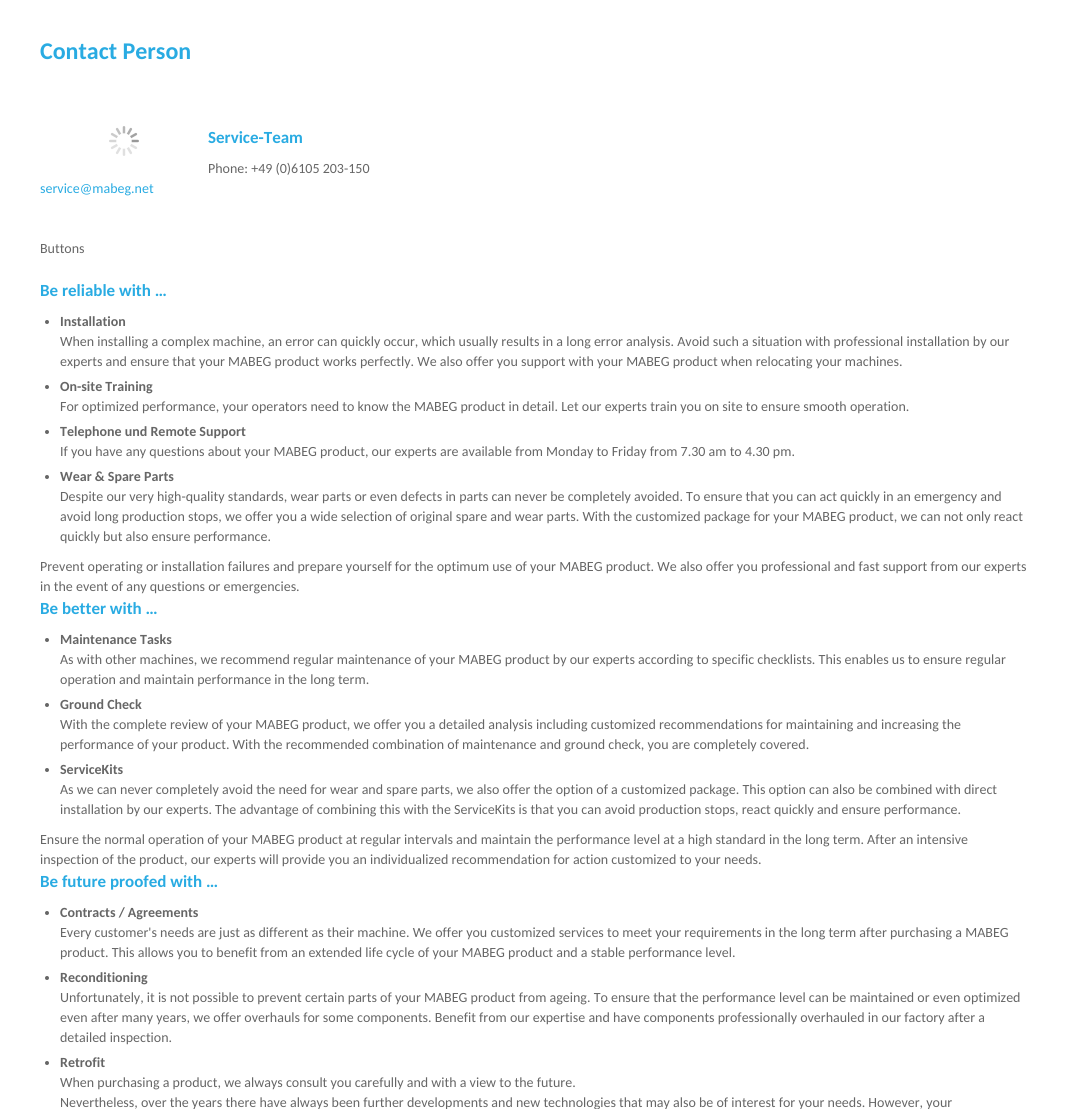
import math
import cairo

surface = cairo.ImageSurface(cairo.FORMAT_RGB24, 1069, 1109)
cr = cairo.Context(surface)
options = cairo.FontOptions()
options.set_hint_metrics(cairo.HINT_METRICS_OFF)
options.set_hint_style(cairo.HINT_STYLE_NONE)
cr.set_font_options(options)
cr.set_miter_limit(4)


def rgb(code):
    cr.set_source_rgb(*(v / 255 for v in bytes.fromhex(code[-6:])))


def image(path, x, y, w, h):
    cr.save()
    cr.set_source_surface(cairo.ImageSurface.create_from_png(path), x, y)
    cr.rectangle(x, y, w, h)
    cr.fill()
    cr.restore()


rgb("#ffffff")
cr.paint()
image("img/1.png", 109, 126, 30, 30)
rgb("#666666")
cr.arc(47, 322, 2, 0, 2 * math.pi)
cr.fill()
cr.arc(47, 387, 2, 0, 2 * math.pi)
cr.fill()
cr.arc(47, 432, 2, 0, 2 * math.pi)
cr.fill()
cr.arc(47, 477, 2, 0, 2 * math.pi)
cr.fill()
cr.arc(47, 640, 2, 0, 2 * math.pi)
cr.fill()
cr.arc(47, 705, 2, 0, 2 * math.pi)
cr.fill()
cr.arc(47, 770, 2, 0, 2 * math.pi)
cr.fill()
cr.arc(47, 913, 2, 0, 2 * math.pi)
cr.fill()
cr.arc(47, 978, 2, 0, 2 * math.pi)
cr.fill()
cr.arc(47, 1063, 2, 0, 2 * math.pi)
cr.fill()
cr.select_font_face("Carlito", cairo.FONT_SLANT_NORMAL, cairo.FONT_WEIGHT_BOLD)
cr.set_font_size(24)
rgb("#29abe2")
cr.move_to(40, 59)
cr.show_text("Contact Person")
cr.set_font_size(17)
cr.move_to(208, 143)
cr.show_text("Service-Team")
cr.select_font_face("Carlito")
cr.set_font_size(14)
rgb("#666666")
cr.move_to(208, 173)
cr.show_text("Phone: +49 (0)6105 203-150")
rgb("#29abe2")
cr.move_to(40, 193)
cr.show_text("service@mabeg.net")
rgb("#666666")
cr.move_to(40, 253)
cr.show_text("Buttons")
cr.select_font_face("Carlito", cairo.FONT_SLANT_NORMAL, cairo.FONT_WEIGHT_BOLD)
cr.set_font_size(17)
rgb("#29abe2")
cr.move_to(40, 296)
cr.show_text("Be reliable with …")
cr.set_font_size(14)
rgb("#666666")
cr.move_to(60, 326)
cr.show_text("Installation")
cr.select_font_face("Carlito")
cr.move_to(60, 346)
cr.show_text("When installing a complex machine, an error can quickly occur, which usually results in a long error analysis. Avoid such a situation with professional installation by our")
cr.move_to(60, 366)
cr.show_text("experts and ensure that your MABEG product works perfectly. We also offer you support with your MABEG product when relocating your machines.")
cr.select_font_face("Carlito", cairo.FONT_SLANT_NORMAL, cairo.FONT_WEIGHT_BOLD)
cr.move_to(60, 391)
cr.show_text("On-site Training")
cr.select_font_face("Carlito")
cr.move_to(60, 411)
cr.show_text("For optimized performance, your operators need to know the MABEG product in detail. Let our experts train you on site to ensure smooth operation.")
cr.select_font_face("Carlito", cairo.FONT_SLANT_NORMAL, cairo.FONT_WEIGHT_BOLD)
cr.move_to(60, 436)
cr.show_text("Telephone und Remote Support")
cr.select_font_face("Carlito")
cr.move_to(60, 456)
cr.show_text("If you have any questions about your MABEG product, our experts are available from Monday to Friday from 7.30 am to 4.30 pm.")
cr.select_font_face("Carlito", cairo.FONT_SLANT_NORMAL, cairo.FONT_WEIGHT_BOLD)
cr.move_to(60, 481)
cr.show_text("Wear & Spare Parts")
cr.select_font_face("Carlito")
for x, y, s in [
    (60, 501, "Despite our very high-quality standards, wear parts or even defects in parts can never be completely avoided. To ensure that you can act quickly in an emergency and"),
    (60, 521, "avoid long production stops, we offer you a wide selection of original spare and wear parts. With the customized package for your MABEG product, we can not only react"),
    (60, 541, "quickly but also ensure performance."),
    (40, 571, "Prevent operating or installation failures and prepare yourself for the optimum use of your MABEG product. We also offer you professional and fast support from our experts"),
    (40, 591, "in the event of any questions or emergencies."),
]:
    cr.move_to(x, y)
    cr.show_text(s)
cr.select_font_face("Carlito", cairo.FONT_SLANT_NORMAL, cairo.FONT_WEIGHT_BOLD)
cr.set_font_size(17)
rgb("#29abe2")
cr.move_to(40, 614)
cr.show_text("Be better with …")
cr.set_font_size(14)
rgb("#666666")
cr.move_to(60, 644)
cr.show_text("Maintenance Tasks")
cr.select_font_face("Carlito")
cr.move_to(60, 664)
cr.show_text("As with other machines, we recommend regular maintenance of your MABEG product by our experts according to specific checklists. This enables us to ensure regular")
cr.move_to(60, 684)
cr.show_text("operation and maintain performance in the long term.")
cr.select_font_face("Carlito", cairo.FONT_SLANT_NORMAL, cairo.FONT_WEIGHT_BOLD)
cr.move_to(60, 709)
cr.show_text("Ground Check")
cr.select_font_face("Carlito")
cr.move_to(60, 729)
cr.show_text("With the complete review of your MABEG product, we offer you a detailed analysis including customized recommendations for maintaining and increasing the")
cr.move_to(60, 749)
cr.show_text("performance of your product. With the recommended combination of maintenance and ground check, you are completely covered.")
cr.select_font_face("Carlito", cairo.FONT_SLANT_NORMAL, cairo.FONT_WEIGHT_BOLD)
cr.move_to(60, 774)
cr.show_text("ServiceKits")
cr.select_font_face("Carlito")
for x, y, s in [
    (60, 794, "As we can never completely avoid the need for wear and spare parts, we also offer the option of a customized package. This option can also be combined with direct"),
    (60, 814, "installation by our experts. The advantage of combining this with the ServiceKits is that you can avoid production stops, react quickly and ensure performance."),
    (40, 844, "Ensure the normal operation of your MABEG product at regular intervals and maintain the performance level at a high standard in the long term. After an intensive"),
    (40, 864, "inspection of the product, our experts will provide you an individualized recommendation for action customized to your needs."),
]:
    cr.move_to(x, y)
    cr.show_text(s)
cr.select_font_face("Carlito", cairo.FONT_SLANT_NORMAL, cairo.FONT_WEIGHT_BOLD)
cr.set_font_size(17)
rgb("#29abe2")
cr.move_to(40, 887)
cr.show_text("Be future proofed with …")
cr.set_font_size(14)
rgb("#666666")
cr.move_to(60, 917)
cr.show_text("Contracts / Agreements")
cr.select_font_face("Carlito")
cr.move_to(60, 937)
cr.show_text("Every customer's needs are just as different as their machine. We offer you customized services to meet your requirements in the long term after purchasing a MABEG")
cr.move_to(60, 957)
cr.show_text("product. This allows you to benefit from an extended life cycle of your MABEG product and a stable performance level.")
cr.select_font_face("Carlito", cairo.FONT_SLANT_NORMAL, cairo.FONT_WEIGHT_BOLD)
cr.move_to(60, 982)
cr.show_text("Reconditioning")
cr.select_font_face("Carlito")
for x, y, s in [
    (60, 1002, "Unfortunately, it is not possible to prevent certain parts of your MABEG product from ageing. To ensure that the performance level can be maintained or even optimized"),
    (60, 1022, "even after many years, we offer overhauls for some components. Benefit from our expertise and have components professionally overhauled in our factory after a"),
    (60, 1042, "detailed inspection."),
]:
    cr.move_to(x, y)
    cr.show_text(s)
cr.select_font_face("Carlito", cairo.FONT_SLANT_NORMAL, cairo.FONT_WEIGHT_BOLD)
cr.move_to(60, 1067)
cr.show_text("Retrofit")
cr.select_font_face("Carlito")
cr.move_to(60, 1087)
cr.show_text("When purchasing a product, we always consult you carefully and with a view to the future.")
cr.move_to(60, 1107)
cr.show_text("Nevertheless, over the years there have always been further developments and new technologies that may also be of interest for your needs. However, your")
surface.write_to_png("page.png")
